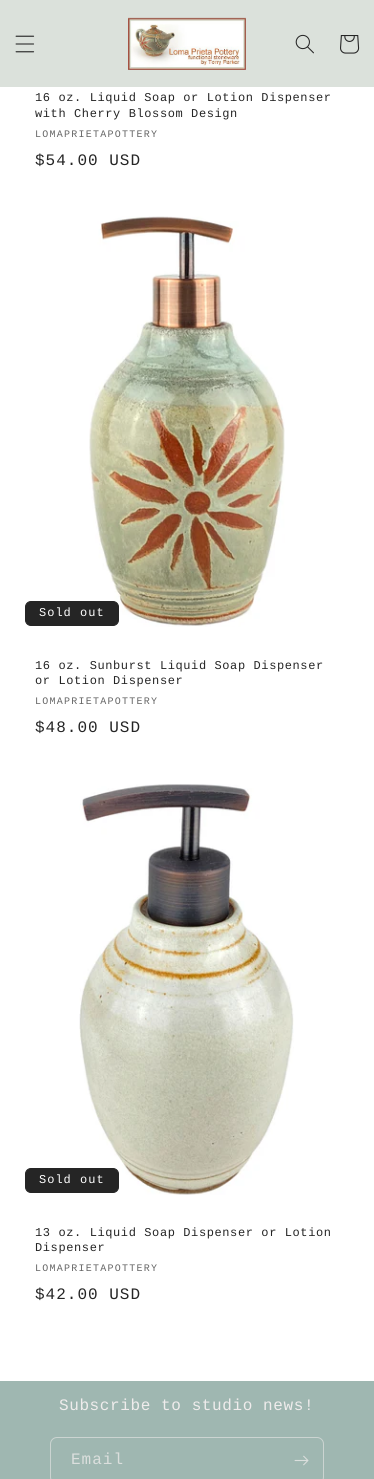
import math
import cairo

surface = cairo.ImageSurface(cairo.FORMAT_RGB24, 374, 1479)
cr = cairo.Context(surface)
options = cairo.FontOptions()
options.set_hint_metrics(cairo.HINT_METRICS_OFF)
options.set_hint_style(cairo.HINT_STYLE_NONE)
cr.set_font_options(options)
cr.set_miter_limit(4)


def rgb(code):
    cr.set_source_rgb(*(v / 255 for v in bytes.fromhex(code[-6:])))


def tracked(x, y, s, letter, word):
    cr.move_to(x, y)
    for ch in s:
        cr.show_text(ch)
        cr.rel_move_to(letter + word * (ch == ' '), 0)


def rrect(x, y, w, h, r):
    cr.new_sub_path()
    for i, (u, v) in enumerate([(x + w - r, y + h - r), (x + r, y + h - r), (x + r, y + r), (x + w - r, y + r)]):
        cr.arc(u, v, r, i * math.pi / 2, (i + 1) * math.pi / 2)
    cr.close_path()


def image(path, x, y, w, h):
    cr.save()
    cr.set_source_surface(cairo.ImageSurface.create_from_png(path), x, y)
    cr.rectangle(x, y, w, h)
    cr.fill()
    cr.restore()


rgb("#ffffff")
cr.paint()
rgb("#dbe1db")
cr.rectangle(0, 0, 374, 87)
cr.fill()
image("img/1.png", 15, 35, 20, 18)
image("img/2.png", 128, 17, 118, 53)
image("img/3.png", 295, 34, 19, 20)
image("img/4.png", 340, 35, 20, 19)
image("img/5.png", 89, 216, 196, 411)
rgb("#252525")
rrect(25.5, 601.5, 93, 24, 5.5)
cr.fill_preserve()
cr.set_line_width(1)
cr.stroke()
image("img/6.png", 79, 784, 215, 411)
rrect(25.5, 1168.5, 93, 24, 5.5)
cr.fill_preserve()
cr.stroke()
rgb("#9fb7b1")
cr.rectangle(0, 1381, 374, 98)
cr.fill()
rrect(50.5, 1437.5, 273, 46, 6.5)
rgb("#cbd4d1")
cr.stroke()
image("img/7.png", 294, 1455, 15, 11)
cr.select_font_face("Liberation Mono")
cr.set_font_size(12)
rgb("#252525")
tracked(35, 101, "16 oz. Liquid Soap or Lotion Dispenser", 0.6, 0)
tracked(35, 117, "with Cherry Blossom Design", 0.6, 0)
cr.set_font_size(10)
rgb("#666666")
tracked(35, 137, "LOMAPRIETAPOTTERY", 1.25, 0)
cr.set_font_size(16)
rgb("#252525")
tracked(35, 165, "$54.00 USD", 1, 0)
cr.set_font_size(12)
rgb("#ffffff")
tracked(39, 616, "Sold out", 1, 0)
rgb("#252525")
tracked(35, 669, "16 oz. Sunburst Liquid Soap Dispenser", 0.6, 0)
tracked(35, 684, "or Lotion Dispenser", 0.6, 0)
cr.set_font_size(10)
rgb("#666666")
tracked(35, 704, "LOMAPRIETAPOTTERY", 1.25, 0)
cr.set_font_size(16)
rgb("#252525")
tracked(35, 732, "$48.00 USD", 1, 0)
cr.set_font_size(12)
rgb("#ffffff")
tracked(39, 1183, "Sold out", 1, 0)
rgb("#252525")
tracked(35, 1236, "13 oz. Liquid Soap Dispenser or Lotion", 0.6, 0)
tracked(35, 1251, "Dispenser", 0.6, 0)
cr.set_font_size(10)
rgb("#666666")
tracked(35, 1271, "LOMAPRIETAPOTTERY", 1.25, 0)
cr.set_font_size(16)
rgb("#252525")
tracked(35, 1299, "$42.00 USD", 1, 0)
rgb("#efecec")
tracked(59, 1410, "Subscribe to studio news!", 0.6, 0)
rgb("#dbdfdd")
tracked(71, 1464, "Email", 1, 0)
surface.write_to_png("page.png")
